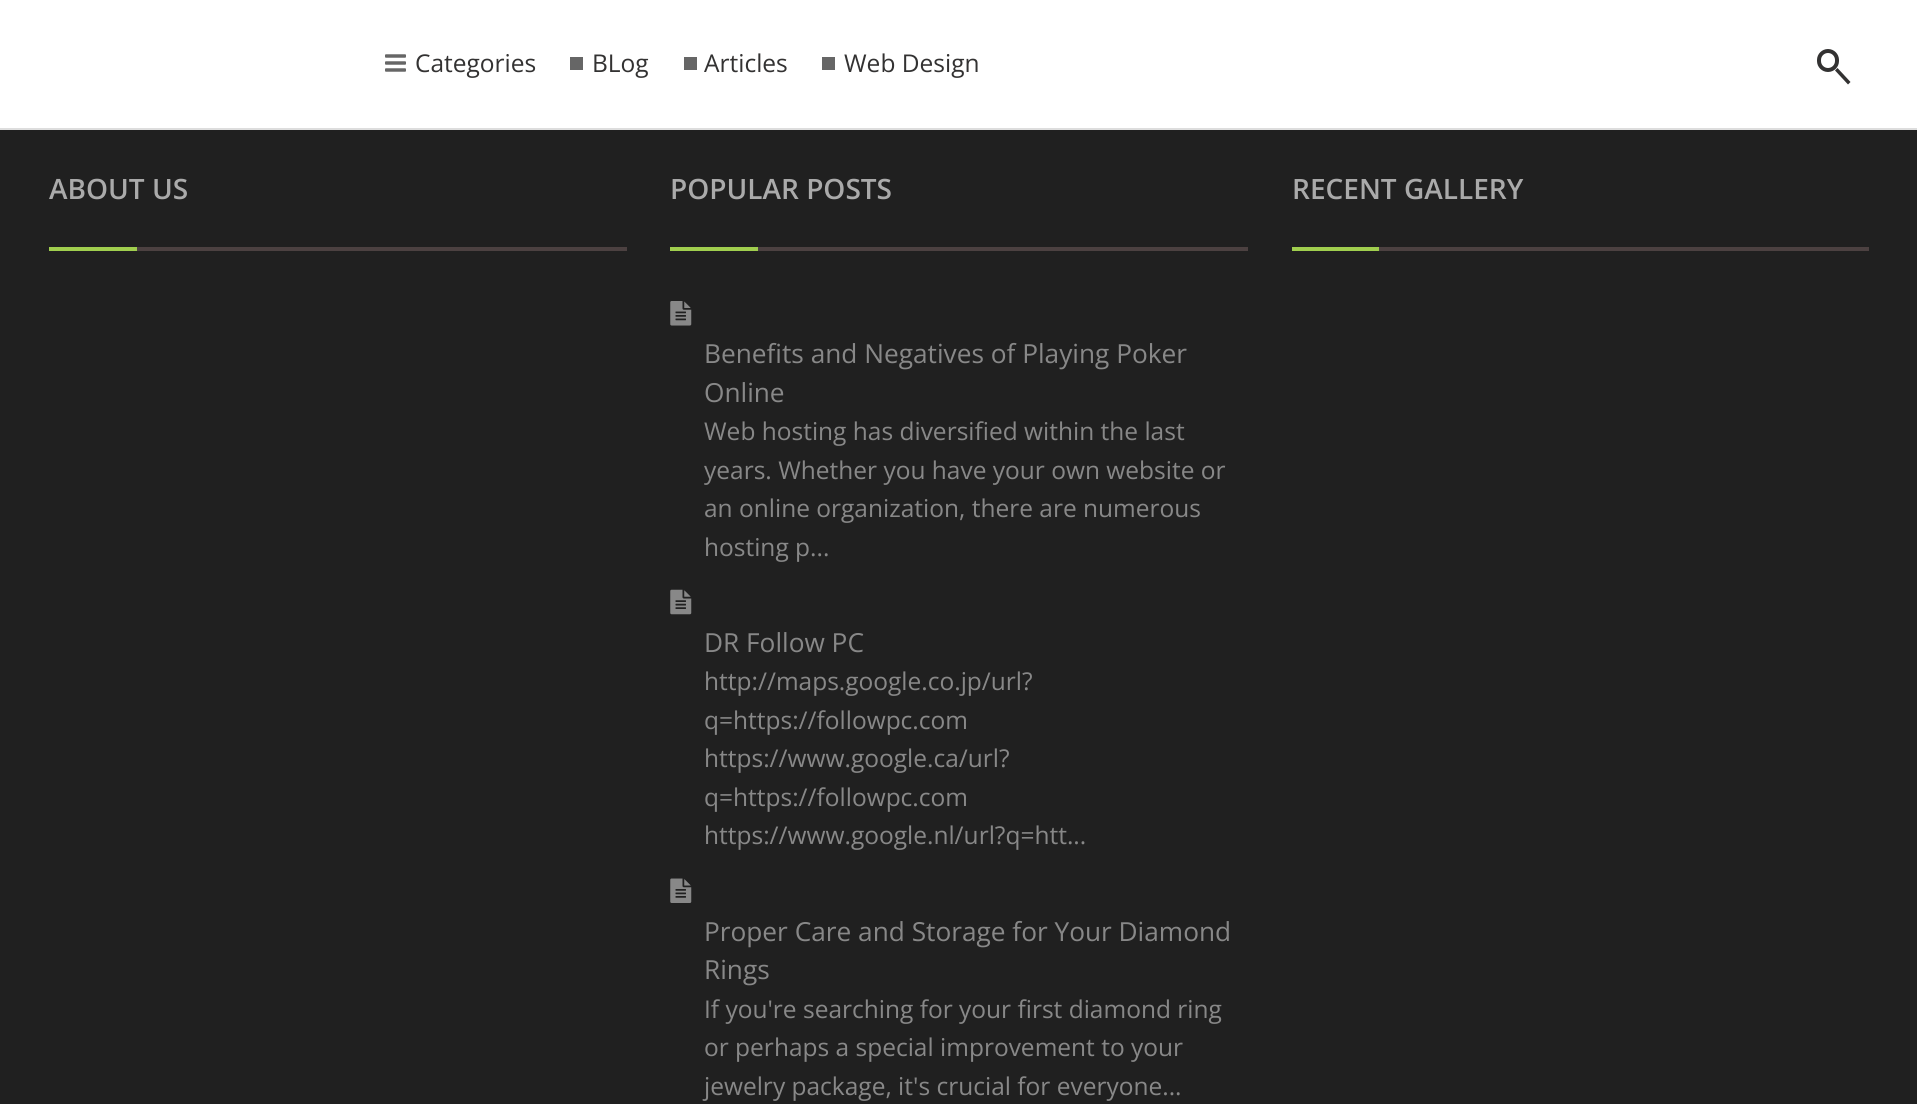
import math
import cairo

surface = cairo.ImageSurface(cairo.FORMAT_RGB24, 1917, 1104)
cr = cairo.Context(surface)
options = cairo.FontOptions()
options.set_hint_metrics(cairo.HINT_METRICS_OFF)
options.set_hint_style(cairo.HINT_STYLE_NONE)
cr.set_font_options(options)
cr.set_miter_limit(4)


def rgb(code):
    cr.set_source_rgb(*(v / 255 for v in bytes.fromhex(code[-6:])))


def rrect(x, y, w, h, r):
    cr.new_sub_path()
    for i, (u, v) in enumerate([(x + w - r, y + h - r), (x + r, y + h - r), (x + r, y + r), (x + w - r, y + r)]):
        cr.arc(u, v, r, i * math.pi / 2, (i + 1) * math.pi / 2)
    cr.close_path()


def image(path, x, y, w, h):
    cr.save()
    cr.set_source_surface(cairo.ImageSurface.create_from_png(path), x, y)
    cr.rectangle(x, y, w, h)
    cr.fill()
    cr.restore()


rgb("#202020")
cr.paint()
rgb("#ffffff")
cr.rectangle(0, 0, 1917, 128)
cr.fill()
rgb("#dddddd")
cr.rectangle(0, 128, 1917, 2)
cr.fill()
image("img/1.png", 385, 54, 21, 18)
for x, y, w, h, color in [
    (570, 57, 13, 13, "#666666"),
    (684, 57, 13, 13, "#666666"),
    (822, 57, 13, 13, "#666666"),
]:
    rgb(color)
    cr.rectangle(x, y, w, h)
    cr.fill()
rrect(1819, 51, 18, 19, 9)
rgb("#333232")
cr.set_line_width(4)
cr.stroke()
cr.new_path()
cr.move_to(1835, 70.5)
cr.line_to(1837.5, 68)
cr.line_to(1850.5, 82)
cr.line_to(1848, 84.5)
cr.close_path()
cr.fill()
for x, y, w, h, color in [
    (49, 247, 88, 4, "#a0ce4e"),
    (137, 247, 490, 4, "#4c4141"),
    (670, 247, 88, 4, "#a0ce4e"),
    (758, 247, 490, 4, "#4c4141"),
]:
    rgb(color)
    cr.rectangle(x, y, w, h)
    cr.fill()
image("img/2.png", 670, 301, 22, 25)
image("img/3.png", 670, 589, 22, 26)
image("img/4.png", 670, 878, 22, 25)
rgb("#a0ce4e")
cr.rectangle(1292, 247, 87, 4)
cr.fill()
rgb("#4c4141")
cr.rectangle(1379, 247, 490, 4)
cr.fill()
cr.select_font_face("Open Sans")
cr.set_font_size(24.5)
rgb("#333232")
for x, y, s in [
    (415, 72, "Categories"),
    (592, 72, "BLog"),
    (704, 72, "Articles"),
    (844, 72, "Web Design"),
]:
    cr.move_to(x, y)
    cr.show_text(s)
cr.select_font_face("Open Sans SemiBold")
cr.set_font_size(28)
rgb("#aaaaaa")
cr.move_to(49, 199)
cr.show_text("ABOUT US")
cr.move_to(670, 199)
cr.show_text("POPULAR POSTS")
cr.select_font_face("Open Sans")
cr.set_font_size(26.25)
rgb("#888888")
cr.move_to(704, 363)
cr.show_text("Benefits and Negatives of Playing Poker")
cr.move_to(704, 402)
cr.show_text("Online")
cr.set_font_size(24.5)
for x, y, s in [
    (704, 440, "Web hosting has diversified within the last"),
    (704, 479, "years. Whether you have your own website or"),
    (704, 517, "an online organization, there are numerous"),
    (704, 556, "hosting p..."),
]:
    cr.move_to(x, y)
    cr.show_text(s)
cr.set_font_size(26.25)
cr.move_to(704, 652)
cr.show_text("DR Follow PC")
cr.set_font_size(24.5)
for x, y, s in [
    (704, 690, "http://maps.google.co.jp/url?"),
    (704, 729, "q=https://followpc.com"),
    (704, 767, "https://www.google.ca/url?"),
    (704, 806, "q=https://followpc.com"),
    (704, 844, "https://www.google.nl/url?q=htt..."),
]:
    cr.move_to(x, y)
    cr.show_text(s)
cr.set_font_size(26.25)
cr.move_to(704, 941)
cr.show_text("Proper Care and Storage for Your Diamond")
cr.move_to(704, 979)
cr.show_text("Rings")
cr.set_font_size(24.5)
for x, y, s in [
    (704, 1018, "If you're searching for your first diamond ring"),
    (704, 1056, "or perhaps a special improvement to your"),
    (704, 1095, "jewelry package, it's crucial for everyone..."),
]:
    cr.move_to(x, y)
    cr.show_text(s)
cr.select_font_face("Open Sans SemiBold")
cr.set_font_size(28)
rgb("#aaaaaa")
cr.move_to(1292, 199)
cr.show_text("RECENT GALLERY")
surface.write_to_png("page.png")
